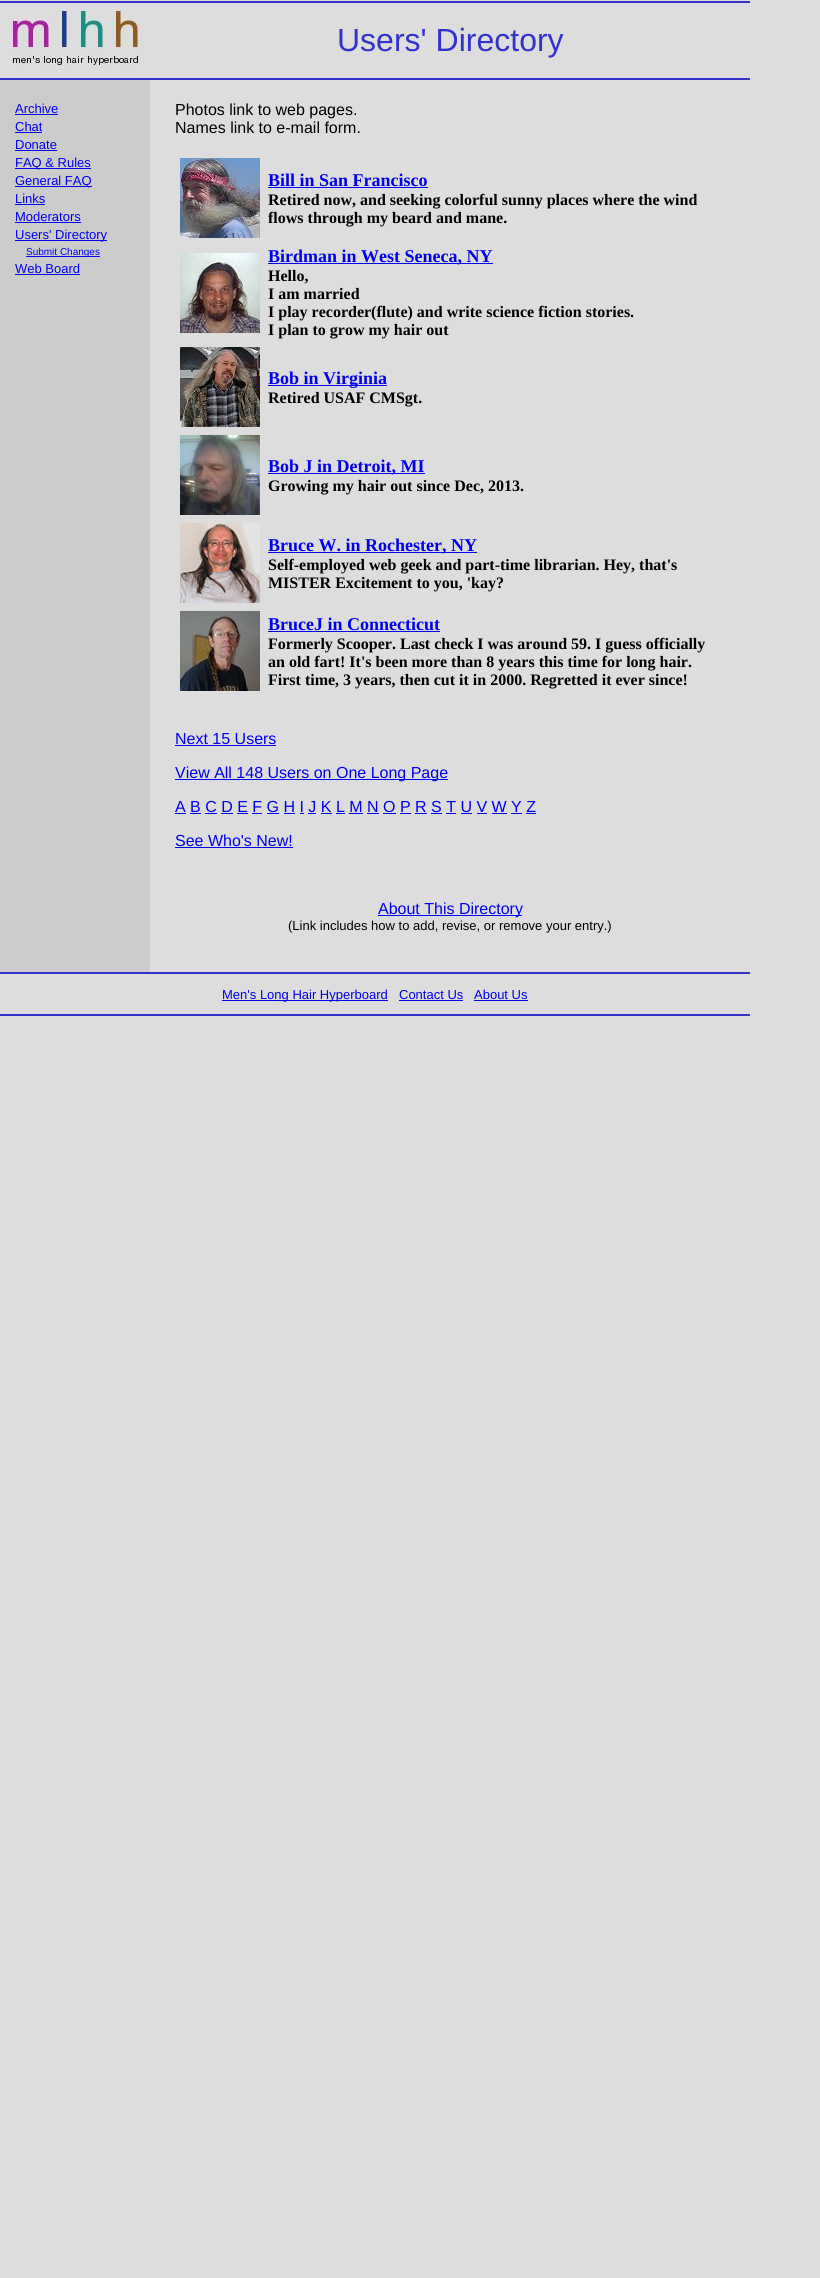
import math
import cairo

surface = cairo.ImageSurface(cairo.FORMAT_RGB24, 820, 2278)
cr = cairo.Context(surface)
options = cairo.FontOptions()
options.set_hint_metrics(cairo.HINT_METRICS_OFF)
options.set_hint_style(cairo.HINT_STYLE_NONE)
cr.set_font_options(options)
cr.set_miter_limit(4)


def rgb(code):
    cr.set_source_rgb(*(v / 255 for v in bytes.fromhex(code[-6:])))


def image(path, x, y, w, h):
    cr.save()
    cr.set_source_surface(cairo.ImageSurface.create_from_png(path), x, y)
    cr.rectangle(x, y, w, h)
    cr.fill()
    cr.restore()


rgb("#dddddd")
cr.paint()
rgb("#3333cc")
cr.rectangle(0, 1, 750, 2)
cr.fill()
image("img/1.png", 0, 3, 144, 64)
for x, y, w, h, color in [
    (0, 78, 750, 2, "#3333cc"),
    (0, 80, 150, 892, "#cccccc"),
    (15, 114, 43, 1, "#0000ee"),
    (15, 132, 27, 1, "#0000ee"),
    (15, 150, 42, 1, "#0000ee"),
    (15, 168, 76, 1, "#0000ee"),
    (15, 186, 77, 1, "#0000ee"),
    (15, 204, 30, 1, "#0000ee"),
    (15, 222, 66, 1, "#0000ee"),
    (15, 240, 92, 1, "#0000ee"),
    (26, 256, 74, 1, "#0000ee"),
    (15, 274, 65, 1, "#0000ee"),
]:
    rgb(color)
    cr.rectangle(x, y, w, h)
    cr.fill()
image("img/2.png", 180, 158, 80, 80)
cr.rectangle(268, 187, 160, 1)
cr.fill()
image("img/3.png", 180, 253, 80, 80)
cr.rectangle(268, 263, 225, 1)
cr.fill()
image("img/4.png", 180, 347, 80, 80)
cr.rectangle(268, 385, 119, 1)
cr.fill()
image("img/5.png", 180, 435, 80, 80)
cr.rectangle(268, 473, 157, 1)
cr.fill()
image("img/6.png", 180, 523, 80, 80)
cr.rectangle(268, 552, 209, 1)
cr.fill()
image("img/7.png", 180, 611, 80, 80)
for x, y, w, h, color in [
    (268, 631, 172, 1, "#0000ee"),
    (175, 745, 101, 1, "#0000ee"),
    (175, 779, 273, 1, "#0000ee"),
    (175, 813, 11, 1, "#0000ee"),
    (190, 813, 11, 1, "#0000ee"),
    (205, 813, 12, 1, "#0000ee"),
    (221, 813, 12, 1, "#0000ee"),
    (237, 813, 11, 1, "#0000ee"),
    (252, 813, 10, 1, "#0000ee"),
    (267, 813, 12, 1, "#0000ee"),
    (284, 813, 11, 1, "#0000ee"),
    (300, 813, 4, 1, "#0000ee"),
    (308, 813, 8, 1, "#0000ee"),
    (321, 813, 11, 1, "#0000ee"),
    (336, 813, 9, 1, "#0000ee"),
    (349, 813, 14, 1, "#0000ee"),
    (367, 813, 12, 1, "#0000ee"),
    (383, 813, 13, 1, "#0000ee"),
    (400, 813, 11, 1, "#0000ee"),
    (415, 813, 12, 1, "#0000ee"),
    (431, 813, 11, 1, "#0000ee"),
    (446, 813, 10, 1, "#0000ee"),
    (461, 813, 11, 1, "#0000ee"),
    (477, 813, 10, 1, "#0000ee"),
    (492, 813, 15, 1, "#0000ee"),
    (511, 813, 11, 1, "#0000ee"),
    (526, 813, 10, 1, "#0000ee"),
    (175, 847, 118, 1, "#0000ee"),
    (378, 915, 144, 1, "#0000ee"),
    (0, 972, 750, 2, "#3333cc"),
    (222, 1000, 166, 1, "#0000ee"),
    (399, 1000, 64, 1, "#0000ee"),
    (474, 1000, 54, 1, "#0000ee"),
    (0, 1014, 750, 2, "#3333cc"),
]:
    rgb(color)
    cr.rectangle(x, y, w, h)
    cr.fill()
cr.select_font_face("Liberation Sans")
cr.set_font_size(32)
cr.move_to(337, 51)
cr.show_text("Users' Directory")
cr.set_font_size(13)
rgb("#0000ee")
for x, y, s in [
    (15, 113, "Archive"),
    (15, 131, "Chat"),
    (15, 149, "Donate"),
    (15, 167, "FAQ & Rules"),
    (15, 185, "General FAQ"),
    (15, 203, "Links"),
    (15, 221, "Moderators"),
    (15, 239, "Users' Directory"),
]:
    cr.move_to(x, y)
    cr.show_text(s)
cr.set_font_size(10)
cr.move_to(26, 255)
cr.show_text("Submit Changes")
cr.set_font_size(13)
cr.move_to(15, 273)
cr.show_text("Web Board")
cr.set_font_size(16)
rgb("#000000")
cr.move_to(175, 115)
cr.show_text("Photos link to web pages.")
cr.move_to(175, 133)
cr.show_text("Names link to e-mail form.")
cr.select_font_face("Liberation Serif", cairo.FONT_SLANT_NORMAL, cairo.FONT_WEIGHT_BOLD)
cr.set_font_size(18)
rgb("#0000ee")
cr.move_to(268, 186)
cr.show_text("Bill in San Francisco")
cr.set_font_size(16)
rgb("#000000")
cr.move_to(268, 205)
cr.show_text("Retired now, and seeking colorful sunny places where the wind")
cr.move_to(268, 223)
cr.show_text("flows through my beard and mane.")
cr.set_font_size(18)
rgb("#0000ee")
cr.move_to(268, 262)
cr.show_text("Birdman in West Seneca, NY")
cr.set_font_size(16)
rgb("#000000")
for x, y, s in [
    (268, 281, "Hello,"),
    (268, 299, "I am married"),
    (268, 317, "I play recorder(flute) and write science fiction stories."),
    (268, 335, "I plan to grow my hair out"),
]:
    cr.move_to(x, y)
    cr.show_text(s)
cr.set_font_size(18)
rgb("#0000ee")
cr.move_to(268, 384)
cr.show_text("Bob in Virginia")
cr.set_font_size(16)
rgb("#000000")
cr.move_to(268, 403)
cr.show_text("Retired USAF CMSgt.")
cr.set_font_size(18)
rgb("#0000ee")
cr.move_to(268, 472)
cr.show_text("Bob J in Detroit, MI")
cr.set_font_size(16)
rgb("#000000")
cr.move_to(268, 491)
cr.show_text("Growing my hair out since Dec, 2013.")
cr.set_font_size(18)
rgb("#0000ee")
cr.move_to(268, 551)
cr.show_text("Bruce W. in Rochester, NY")
cr.set_font_size(16)
rgb("#000000")
cr.move_to(268, 570)
cr.show_text("Self-employed web geek and part-time librarian. Hey, that's")
cr.move_to(268, 588)
cr.show_text("MISTER Excitement to you, 'kay?")
cr.set_font_size(18)
rgb("#0000ee")
cr.move_to(268, 630)
cr.show_text("BruceJ in Connecticut")
cr.set_font_size(16)
rgb("#000000")
for x, y, s in [
    (268, 649, "Formerly Scooper. Last check I was around 59. I guess officially"),
    (268, 667, "an old fart! It's been more than 8 years this time for long hair."),
    (268, 685, "First time, 3 years, then cut it in 2000. Regretted it ever since!"),
]:
    cr.move_to(x, y)
    cr.show_text(s)
cr.select_font_face("Liberation Sans")
rgb("#0000ee")
for x, y, s in [
    (175, 744, "Next 15 Users"),
    (175, 778, "View All 148 Users on One Long Page"),
    (175, 812, "A B C D E F G H I J K L M N O P R S T U V W Y Z"),
    (175, 846, "See Who's New!"),
    (378, 914, "About This Directory"),
]:
    cr.move_to(x, y)
    cr.show_text(s)
cr.set_font_size(13)
rgb("#000000")
cr.move_to(288, 930)
cr.show_text("(Link includes how to add, revise, or remove your entry.)")
rgb("#0000ee")
for x, y, s in [
    (222, 999, "Men's Long Hair Hyperboard"),
    (399, 999, "Contact Us"),
    (474, 999, "About Us"),
]:
    cr.move_to(x, y)
    cr.show_text(s)
surface.write_to_png("page.png")
